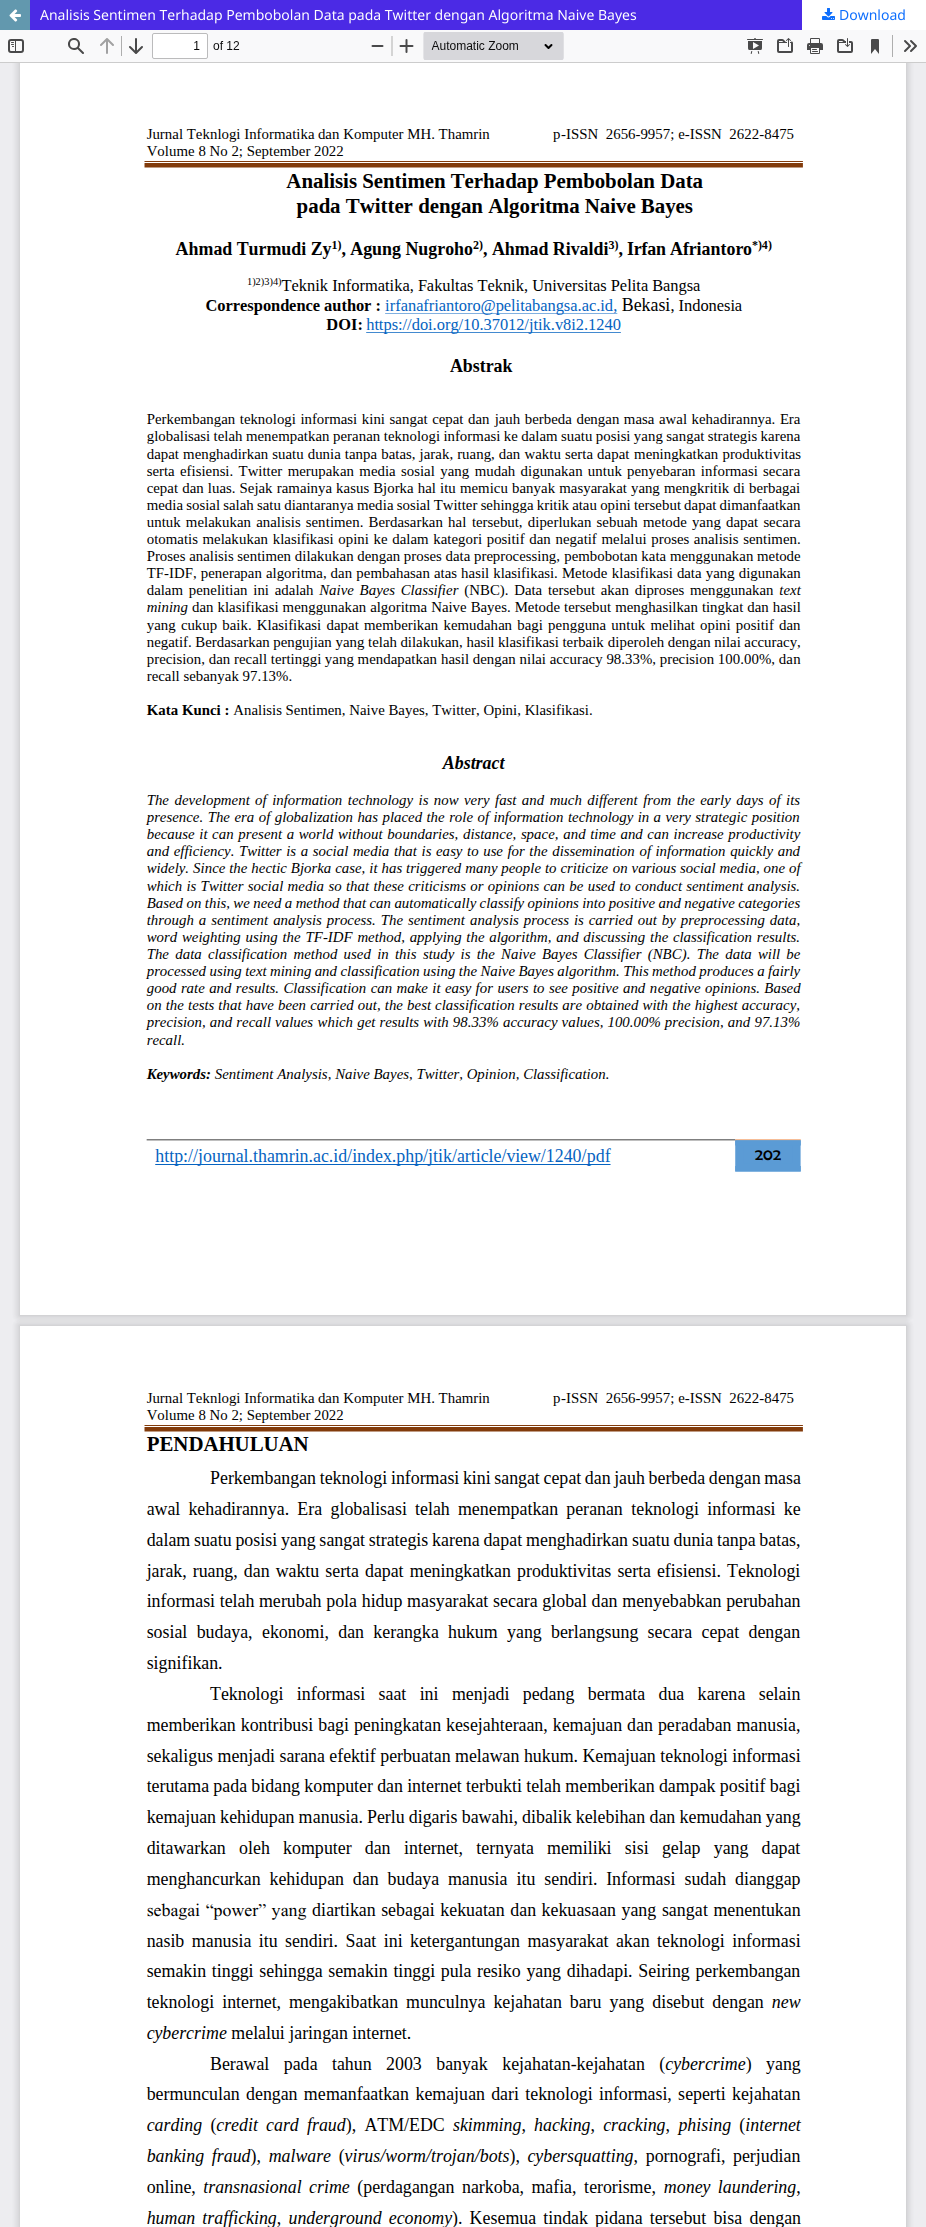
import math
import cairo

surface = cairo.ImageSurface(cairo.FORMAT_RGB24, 926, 2227)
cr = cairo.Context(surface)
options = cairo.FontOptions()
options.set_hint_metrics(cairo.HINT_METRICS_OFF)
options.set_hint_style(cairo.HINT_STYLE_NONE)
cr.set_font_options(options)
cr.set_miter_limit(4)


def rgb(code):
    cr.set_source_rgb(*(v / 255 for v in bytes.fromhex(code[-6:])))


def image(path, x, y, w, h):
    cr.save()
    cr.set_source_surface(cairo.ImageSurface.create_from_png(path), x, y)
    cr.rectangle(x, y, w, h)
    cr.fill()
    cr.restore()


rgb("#ffffff")
cr.paint()
rgb("#4b2ae5")
cr.rectangle(30, 0, 772, 30)
cr.fill()
rgb("#6298ae")
cr.rectangle(0, 0, 30, 30)
cr.fill()
image("img/1.png", 9, 9, 12, 13)
image("img/2.png", 822, 8, 13, 12)
image("img/3.png", 0, 30, 926, 2197)
cr.select_font_face("Noto Sans")
cr.set_font_size(14)
rgb("#ffffff")
cr.move_to(40, 20)
cr.show_text("Analisis Sentimen Terhadap Pembobolan Data pada Twitter dengan Algoritma Naive Bayes")
rgb("#0d6efd")
cr.move_to(839, 20)
cr.show_text("Download")
surface.write_to_png("page.png")
